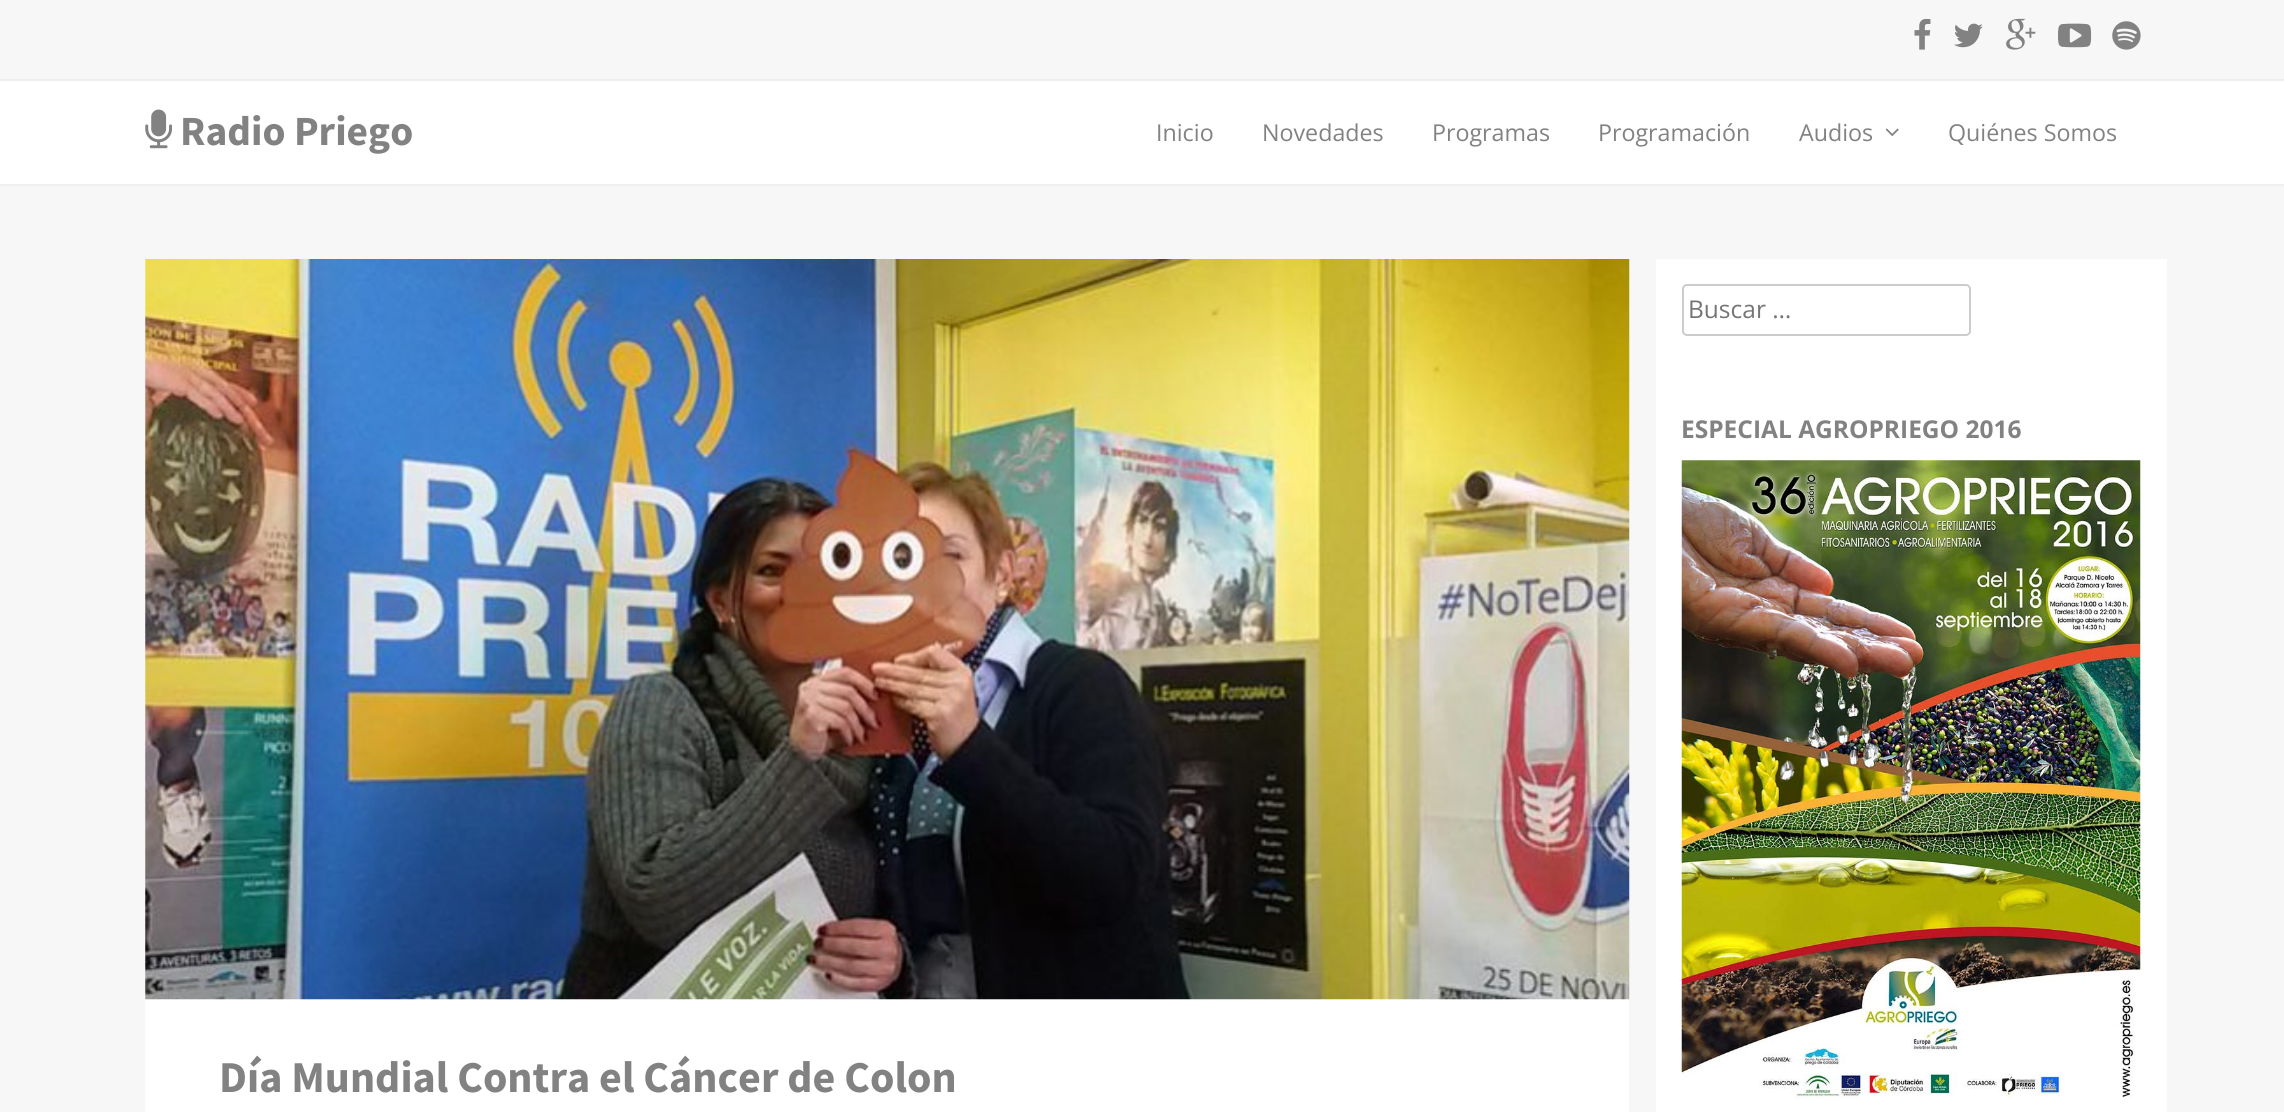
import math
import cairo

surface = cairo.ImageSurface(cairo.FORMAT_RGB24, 2284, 1112)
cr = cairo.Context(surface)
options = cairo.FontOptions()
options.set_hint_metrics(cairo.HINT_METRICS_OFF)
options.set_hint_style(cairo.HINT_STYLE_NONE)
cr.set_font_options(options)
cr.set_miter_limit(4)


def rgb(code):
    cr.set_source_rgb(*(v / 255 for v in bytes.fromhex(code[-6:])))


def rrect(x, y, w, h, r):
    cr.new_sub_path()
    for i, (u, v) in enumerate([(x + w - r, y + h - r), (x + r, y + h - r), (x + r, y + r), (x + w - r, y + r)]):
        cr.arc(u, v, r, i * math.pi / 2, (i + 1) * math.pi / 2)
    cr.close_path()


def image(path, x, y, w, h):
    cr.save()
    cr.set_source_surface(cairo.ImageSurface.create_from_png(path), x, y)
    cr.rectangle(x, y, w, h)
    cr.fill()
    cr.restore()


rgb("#f7f7f7")
cr.paint()
rgb("#eeeeee")
cr.rectangle(0, 79, 2284, 2)
cr.fill()
image("img/1.png", 1914, 18, 17, 32)
image("img/2.png", 1954, 23, 29, 25)
image("img/3.png", 2006, 18, 30, 32)
image("img/4.png", 2058, 23, 34, 25)
image("img/5.png", 2112, 21, 29, 29)
rgb("#ffffff")
cr.rectangle(0, 81, 2284, 103)
cr.fill()
rgb("#f0f0f0")
cr.rectangle(0, 184, 2284, 2)
cr.fill()
image("img/6.png", 145, 109, 27, 40)
image("img/7.png", 1885, 128, 14, 8)
rgb("#ffffff")
cr.rectangle(1656, 259, 511, 853)
cr.fill()
rrect(1683, 285, 287, 50, 4)
rgb("#cccccc")
cr.stroke()
image("img/8.png", 1681, 460, 460, 641)
rgb("#ffffff")
cr.rectangle(145, 259, 1484, 853)
cr.fill()
image("img/9.png", 145, 259, 1485, 741)
cr.select_font_face("Source Sans Pro", cairo.FONT_SLANT_NORMAL, cairo.FONT_WEIGHT_BOLD)
cr.set_font_size(41.5)
rgb("#828282")
cr.move_to(180, 145)
cr.show_text("Radio Priego")
cr.select_font_face("Open Sans")
cr.set_font_size(23.25)
for x, y, s in [
    (1156, 141, "Inicio"),
    (1262, 141, "Novedades"),
    (1432, 141, "Programas"),
    (1598, 141, "Programación"),
    (1799, 141, "Audios"),
    (1948, 141, "Quiénes Somos"),
]:
    cr.move_to(x, y)
    cr.show_text(s)
cr.set_font_size(24.5)
rgb("#757575")
cr.move_to(1688, 318)
cr.show_text("Buscar …")
cr.select_font_face("Open Sans", cairo.FONT_SLANT_NORMAL, cairo.FONT_WEIGHT_BOLD)
rgb("#828282")
cr.move_to(1681, 438)
cr.show_text("ESPECIAL AGROPRIEGO 2016")
cr.select_font_face("Source Sans Pro", cairo.FONT_SLANT_NORMAL, cairo.FONT_WEIGHT_BOLD)
cr.set_font_size(44.1)
cr.move_to(219, 1092)
cr.show_text("Día Mundial Contra el Cáncer de Colon")
surface.write_to_png("page.png")
